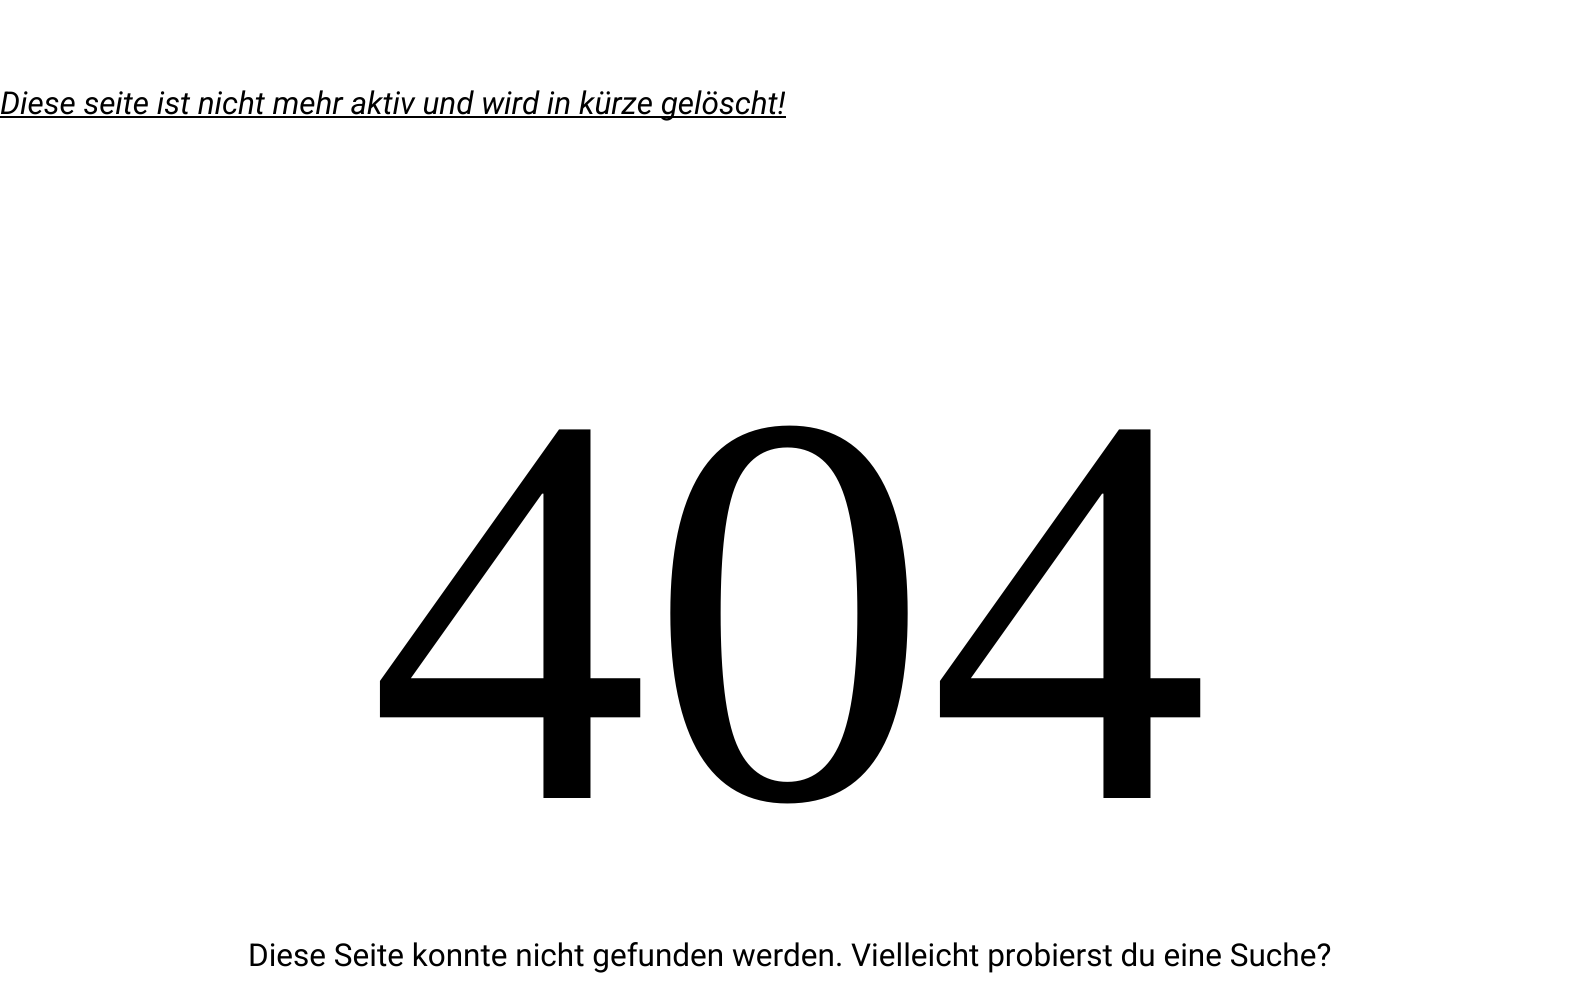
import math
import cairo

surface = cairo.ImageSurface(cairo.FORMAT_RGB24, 1578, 1005)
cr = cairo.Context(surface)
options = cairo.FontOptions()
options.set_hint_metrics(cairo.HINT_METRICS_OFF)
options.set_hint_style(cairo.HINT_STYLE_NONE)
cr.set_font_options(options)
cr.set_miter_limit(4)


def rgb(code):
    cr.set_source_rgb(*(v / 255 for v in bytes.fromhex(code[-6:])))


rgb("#ffffff")
cr.paint()
rgb("#000000")
cr.rectangle(0, 116, 786, 2)
cr.fill()
cr.select_font_face("Roboto", cairo.FONT_SLANT_ITALIC)
cr.set_font_size(31.5)
cr.move_to(0, 114)
cr.show_text("Diese seite ist nicht mehr aktiv und wird in kürze gelöscht!")
cr.select_font_face("Liberation Serif")
cr.set_font_size(560)
cr.move_to(369, 798)
cr.show_text("404")
cr.select_font_face("Roboto")
cr.set_font_size(31.5)
cr.move_to(248, 966)
cr.show_text("Diese Seite konnte nicht gefunden werden. Vielleicht probierst du eine Suche?")
surface.write_to_png("page.png")
